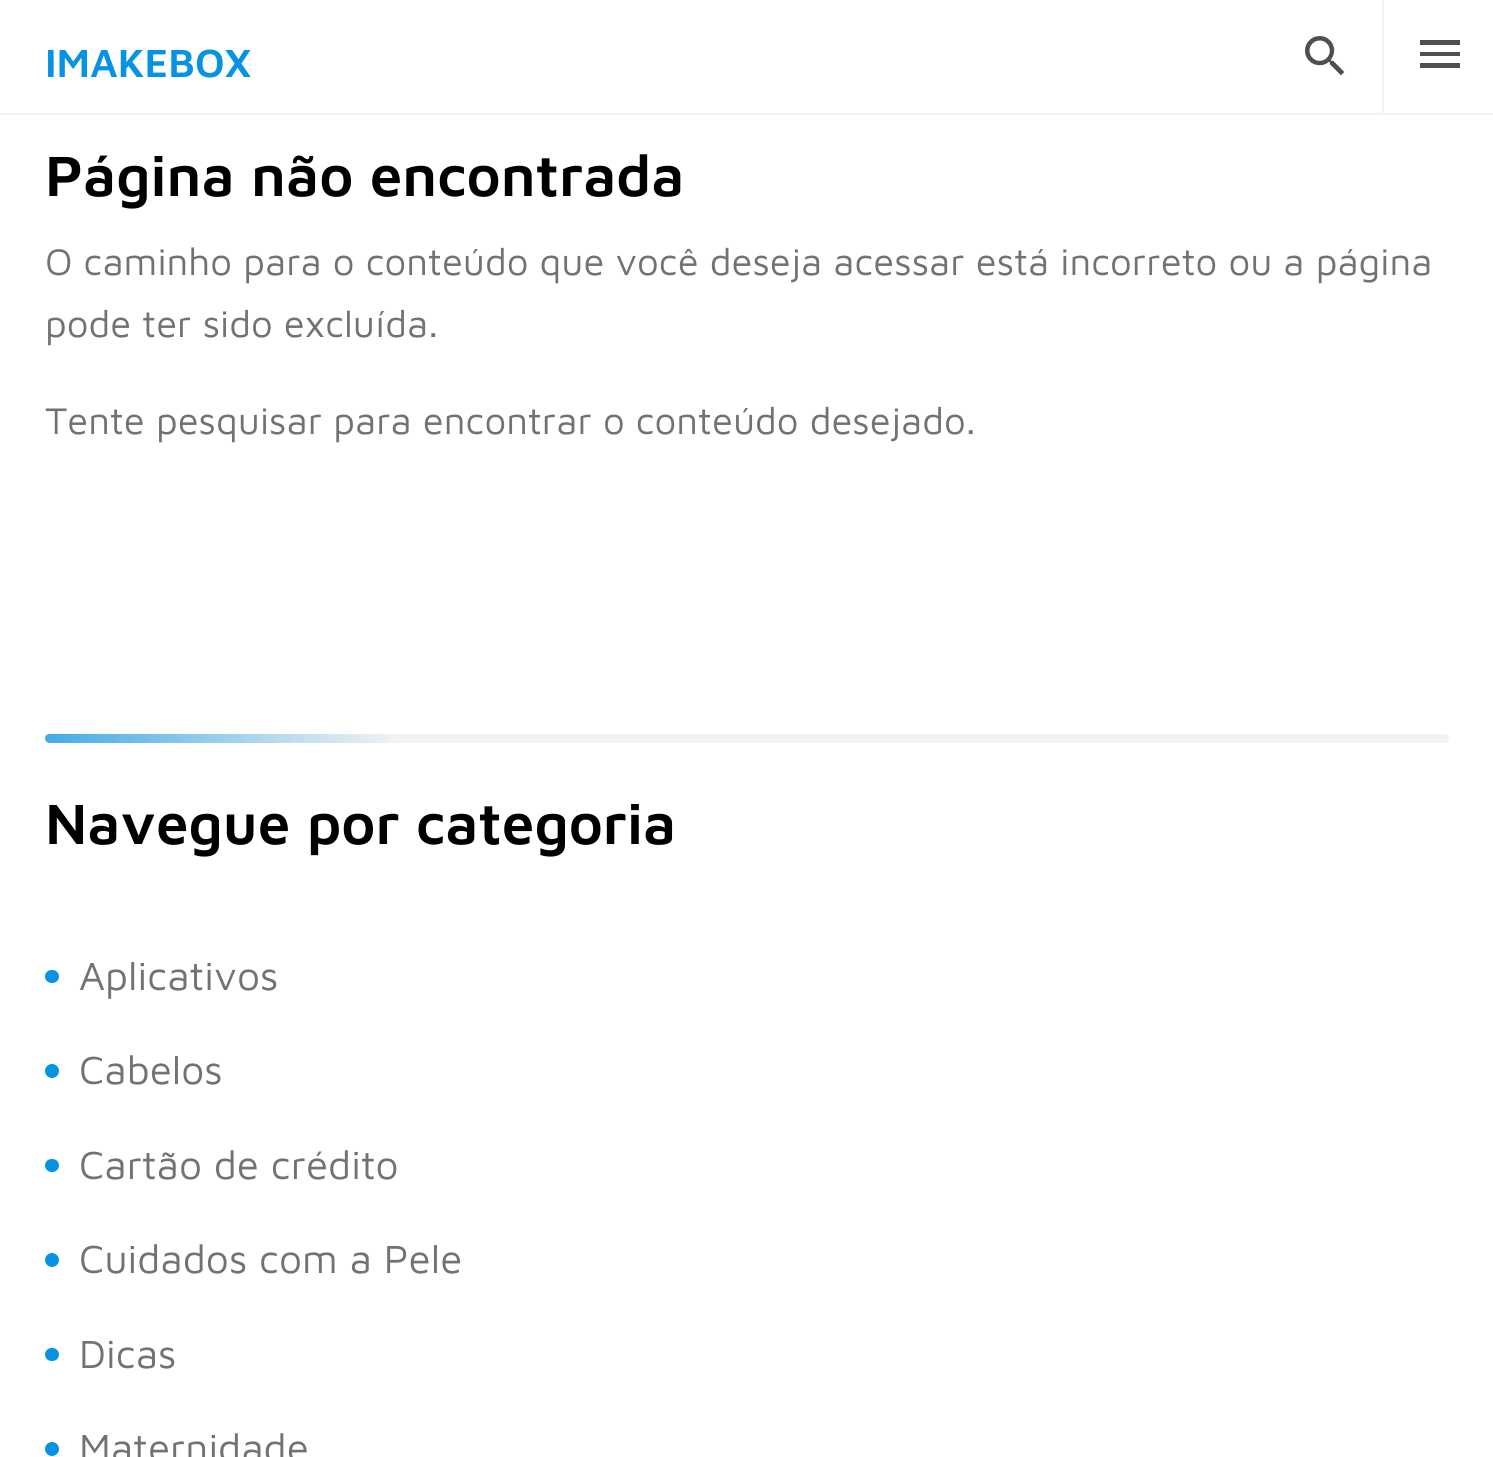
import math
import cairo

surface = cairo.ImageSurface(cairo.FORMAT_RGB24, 1493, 1457)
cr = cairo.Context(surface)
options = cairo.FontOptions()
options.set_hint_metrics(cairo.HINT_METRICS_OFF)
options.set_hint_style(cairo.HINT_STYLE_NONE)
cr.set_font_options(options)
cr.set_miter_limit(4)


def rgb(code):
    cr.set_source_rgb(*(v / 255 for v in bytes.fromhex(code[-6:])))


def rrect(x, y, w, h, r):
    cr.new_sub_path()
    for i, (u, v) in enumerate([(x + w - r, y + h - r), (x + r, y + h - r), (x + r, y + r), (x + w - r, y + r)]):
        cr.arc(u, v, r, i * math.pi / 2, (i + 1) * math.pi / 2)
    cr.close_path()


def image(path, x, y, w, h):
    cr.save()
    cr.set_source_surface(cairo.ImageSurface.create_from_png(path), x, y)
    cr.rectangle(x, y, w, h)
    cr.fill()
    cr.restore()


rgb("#ffffff")
cr.paint()
rgb("#f2f2f2")
cr.rectangle(0, 113, 1493, 2)
cr.fill()
cr.rectangle(1382, 0, 2, 113)
cr.fill()
rgb("#4f4f4f")
cr.new_path()
cr.move_to(1420, 40)
cr.line_to(1460, 40)
cr.line_to(1460, 45)
cr.line_to(1420, 45)
cr.close_path()
cr.move_to(1420, 56)
cr.line_to(1420, 52)
cr.line_to(1460, 52)
cr.line_to(1460, 56)
cr.close_path()
cr.move_to(1420, 68)
cr.line_to(1420, 63)
cr.line_to(1460, 63)
cr.line_to(1460, 68)
cr.close_path()
cr.fill()
image("img/1.png", 1305, 36, 40, 40)
rgb("#f2f2f2")
rrect(45, 734, 1404, 9, 4.5)
cr.fill()
gradient = cairo.LinearGradient(396, 738, 45, 738)
gradient.add_color_stop_rgba(0, 0.949, 0.949, 0.949, 0.75)
gradient.add_color_stop_rgba(1, 0.024, 0.576, 0.89, 0.75)
cr.set_source(gradient)
rrect(45, 734, 351, 9, 4.5)
cr.fill()
rgb("#0693e3")
rrect(45, 970, 14, 13, 6.5)
cr.fill()
cr.arc(52, 1071, 7, 0, 2 * math.pi)
cr.fill()
rrect(45, 1159, 14, 13, 6.5)
cr.fill()
cr.arc(52, 1260, 7, 0, 2 * math.pi)
cr.fill()
rrect(45, 1348, 14, 13, 6.5)
cr.fill()
cr.arc(52, 1449, 7, 0, 2 * math.pi)
cr.fill()
cr.select_font_face("Maven Pro SemiBold")
cr.set_font_size(40.5)
cr.move_to(45, 77)
cr.show_text("IMAKEBOX")
cr.set_font_size(58.5)
rgb("#000000")
cr.move_to(45, 196)
cr.show_text("Página não encontrada")
cr.select_font_face("Maven Pro")
cr.set_font_size(38.25)
rgb("#727272")
for x, y, s in [
    (45, 275, "O caminho para o conteúdo que você deseja acessar está incorreto ou a página"),
    (45, 337, "pode ter sido excluída."),
    (45, 434, "Tente pesquisar para encontrar o conteúdo desejado."),
]:
    cr.move_to(x, y)
    cr.show_text(s)
cr.select_font_face("Maven Pro SemiBold")
cr.set_font_size(58.5)
rgb("#000000")
cr.move_to(45, 844)
cr.show_text("Navegue por categoria")
cr.select_font_face("Maven Pro")
cr.set_font_size(40.5)
rgb("#727272")
for x, y, s in [
    (79, 990, "Aplicativos"),
    (79, 1084, "Cabelos"),
    (79, 1179, "Cartão de crédito"),
    (79, 1273, "Cuidados com a Pele"),
    (79, 1368, "Dicas"),
    (79, 1462, "Maternidade"),
]:
    cr.move_to(x, y)
    cr.show_text(s)
surface.write_to_png("page.png")
